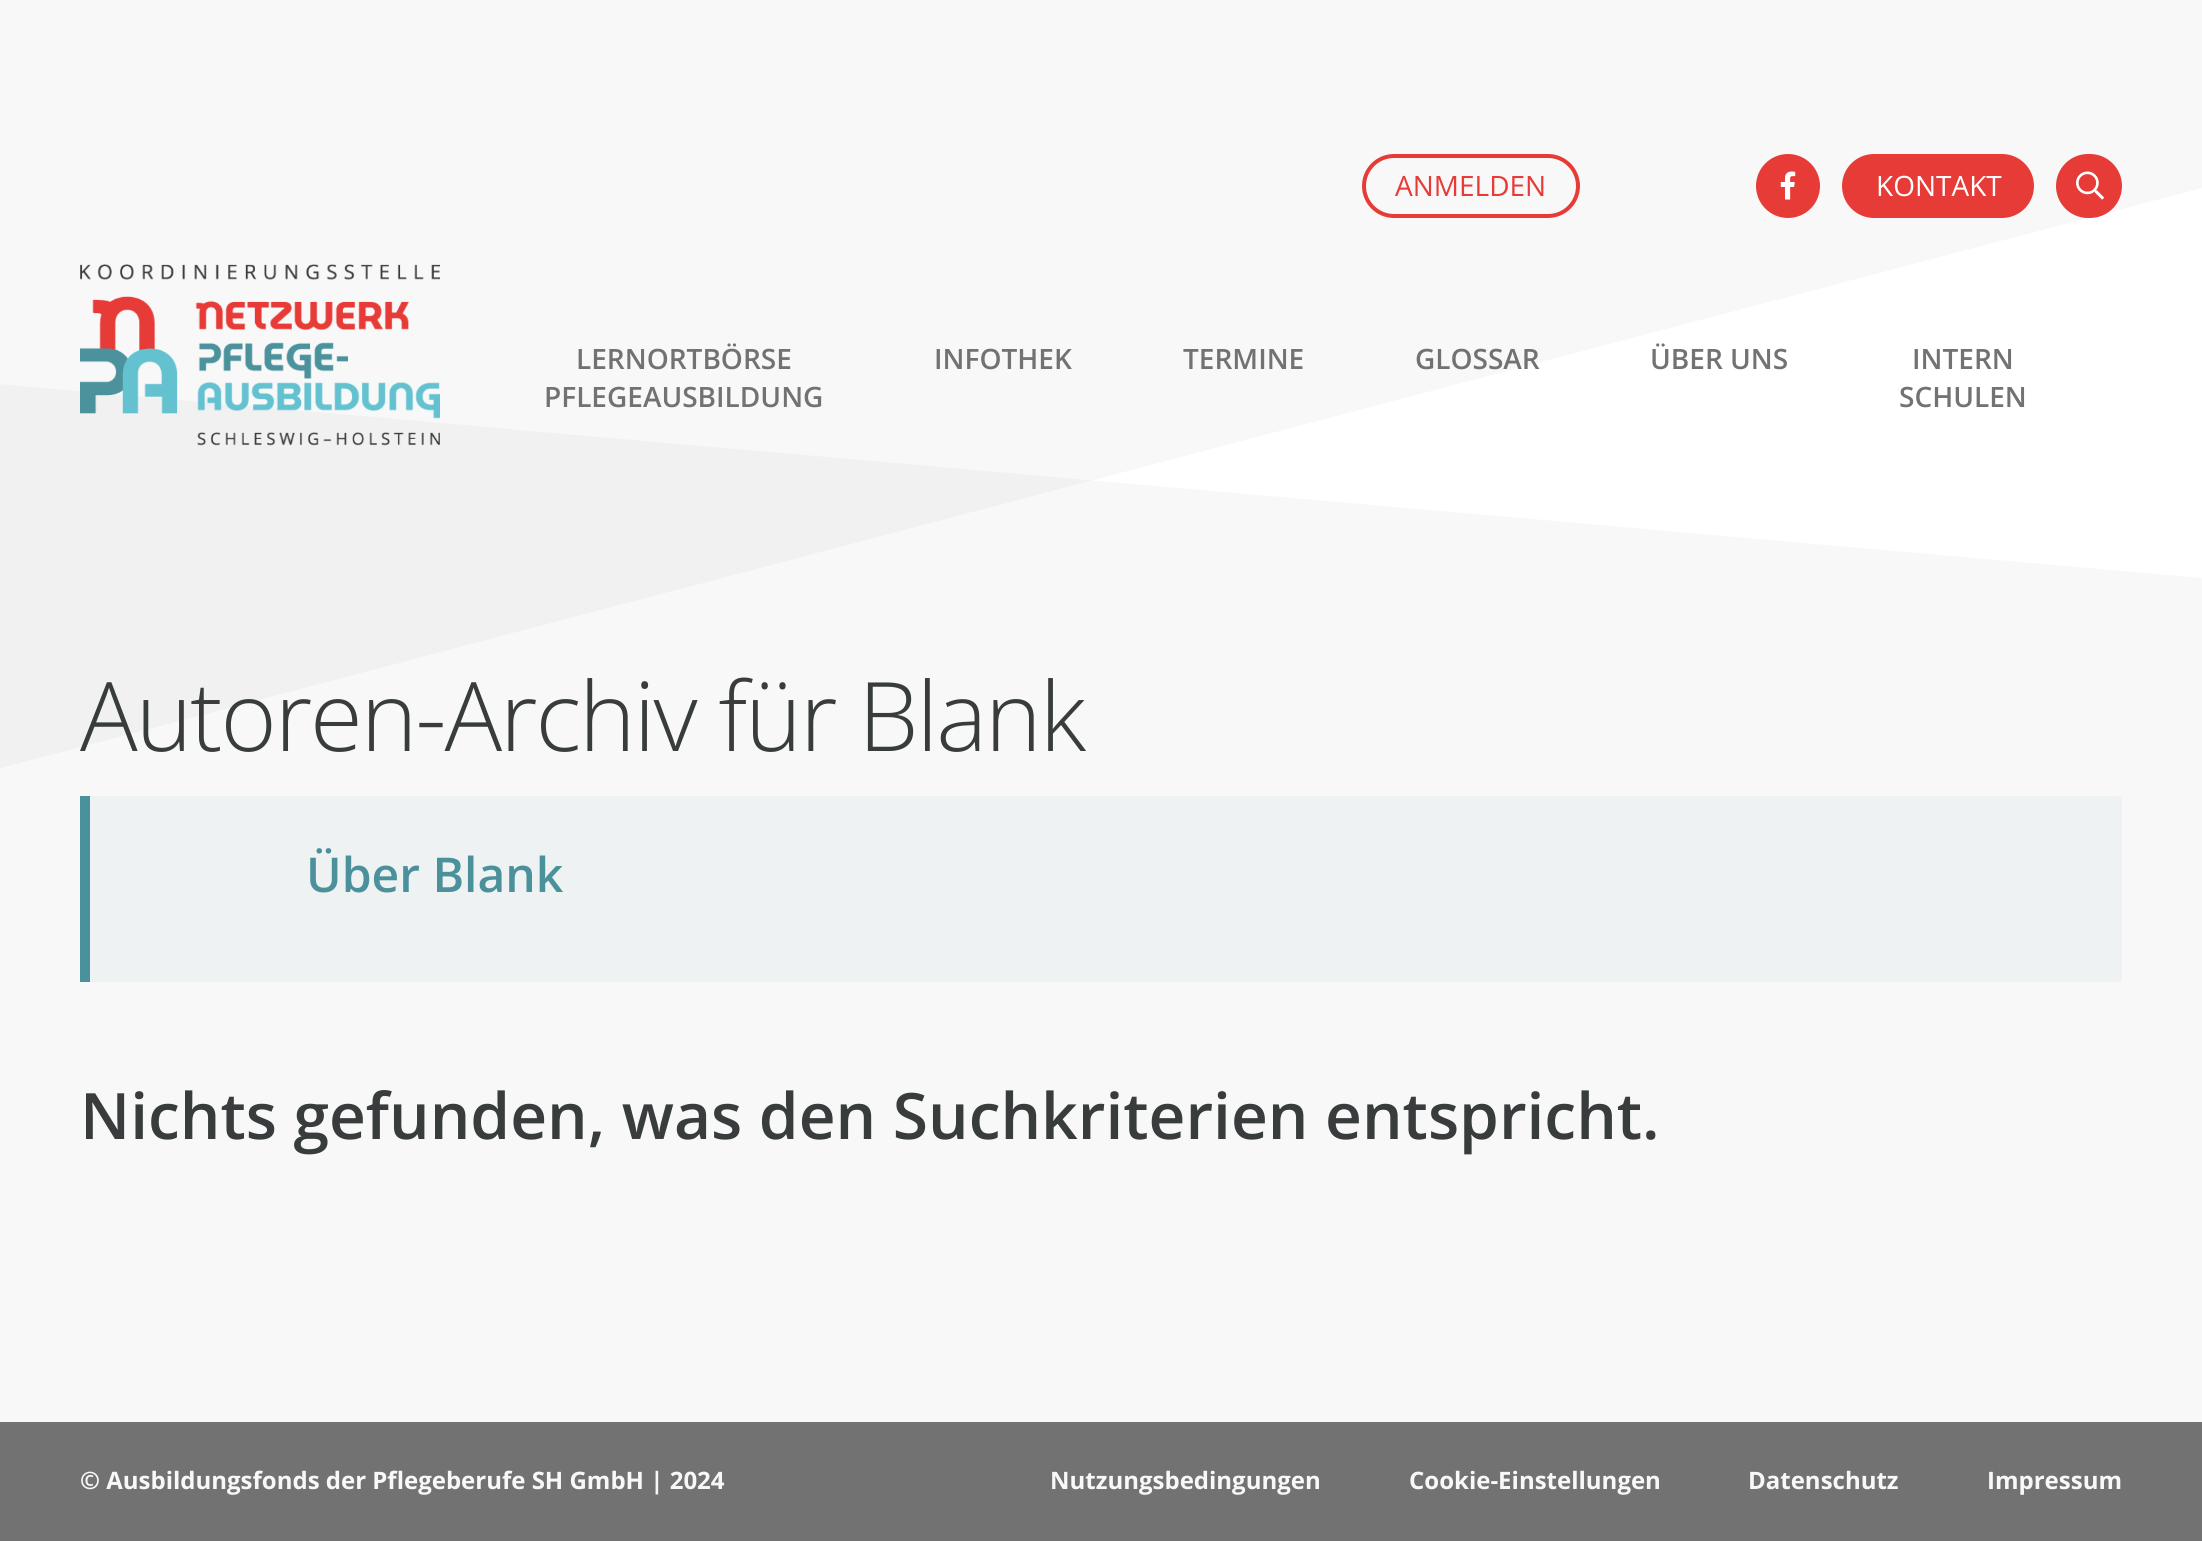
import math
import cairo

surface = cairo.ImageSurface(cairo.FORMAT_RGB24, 2202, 1541)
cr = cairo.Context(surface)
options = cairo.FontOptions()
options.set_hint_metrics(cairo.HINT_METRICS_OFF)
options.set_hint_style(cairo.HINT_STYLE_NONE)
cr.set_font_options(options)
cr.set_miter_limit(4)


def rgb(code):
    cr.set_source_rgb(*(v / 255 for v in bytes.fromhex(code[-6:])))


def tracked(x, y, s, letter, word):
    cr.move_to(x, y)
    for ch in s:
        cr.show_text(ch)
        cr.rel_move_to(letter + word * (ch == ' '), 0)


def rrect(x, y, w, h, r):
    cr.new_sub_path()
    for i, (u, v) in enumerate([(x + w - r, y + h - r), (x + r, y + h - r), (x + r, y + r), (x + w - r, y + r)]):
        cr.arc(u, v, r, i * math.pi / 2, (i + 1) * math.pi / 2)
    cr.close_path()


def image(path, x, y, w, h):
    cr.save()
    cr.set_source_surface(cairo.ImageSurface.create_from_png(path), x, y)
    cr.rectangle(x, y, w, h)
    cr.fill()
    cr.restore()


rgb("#f8f8f8")
cr.paint()
image("img/1.png", 0, 188, 2202, 1234)
rrect(1364, 156, 214, 60, 30)
rgb("#e63b37")
cr.set_line_width(4)
cr.stroke()
cr.arc(1788, 186, 30, 0, 2 * math.pi)
cr.fill_preserve()
cr.stroke()
image("img/2.png", 1780, 171, 16, 29)
rrect(1844, 156, 188, 60, 30)
cr.fill_preserve()
cr.stroke()
rrect(2058, 156, 62, 60, 30)
cr.fill_preserve()
cr.stroke()
image("img/3.png", 2076, 171, 28, 29)
image("img/4.png", 80, 264, 360, 182)
rgb("#eef2f2")
cr.new_path()
cr.move_to(90, 796)
cr.line_to(2118, 796)
cr.curve_to(2120, 796, 2122, 798, 2122, 800)
cr.line_to(2122, 978)
cr.curve_to(2122, 980, 2120, 982, 2118, 982)
cr.line_to(90, 982)
cr.close_path()
cr.fill()
rgb("#4b919c")
cr.rectangle(80, 796, 10, 186)
cr.fill()
rgb("#737272")
cr.rectangle(0, 1422, 2202, 119)
cr.fill()
cr.select_font_face("Open Sans")
cr.set_font_size(28)
rgb("#e63b37")
cr.move_to(1395, 196)
cr.show_text("ANMELDEN")
rgb("#ffffff")
cr.move_to(1876, 196)
cr.show_text("KONTAKT")
cr.select_font_face("Open Sans SemiBold")
rgb("#737272")
for x, y, s in [
    (576, 369, "LERNORTBÖRSE"),
    (544, 407, "PFLEGEAUSBILDUNG"),
    (934, 369, "INFOTHEK"),
    (1183, 369, "TERMINE"),
    (1415, 369, "GLOSSAR"),
    (1650, 369, "ÜBER UNS"),
    (1912, 369, "INTERN"),
    (1899, 407, "SCHULEN"),
]:
    cr.move_to(x, y)
    cr.show_text(s)
cr.select_font_face("Open Sans Light")
cr.set_font_size(96)
rgb("#383c3c")
tracked(80, 751, "Autoren-Archiv für Blank", -2, 0)
cr.select_font_face("Open Sans SemiBold")
cr.set_font_size(48)
rgb("#4b919c")
cr.move_to(306, 892)
cr.show_text("Über Blank")
cr.set_font_size(64)
rgb("#383c3c")
cr.move_to(80, 1139)
cr.show_text("Nichts gefunden, was den Suchkriterien entspricht.")
cr.select_font_face("Open Sans", cairo.FONT_SLANT_NORMAL, cairo.FONT_WEIGHT_BOLD)
cr.set_font_size(24)
rgb("#f8f8f8")
for x, y, s in [
    (80, 1489, "© Ausbildungsfonds der Pflegeberufe SH GmbH | 2024"),
    (1050, 1489, "Nutzungsbedingungen"),
    (1409, 1489, "Cookie-Einstellungen"),
    (1748, 1489, "Datenschutz"),
    (1987, 1489, "Impressum"),
]:
    cr.move_to(x, y)
    cr.show_text(s)
surface.write_to_png("page.png")
